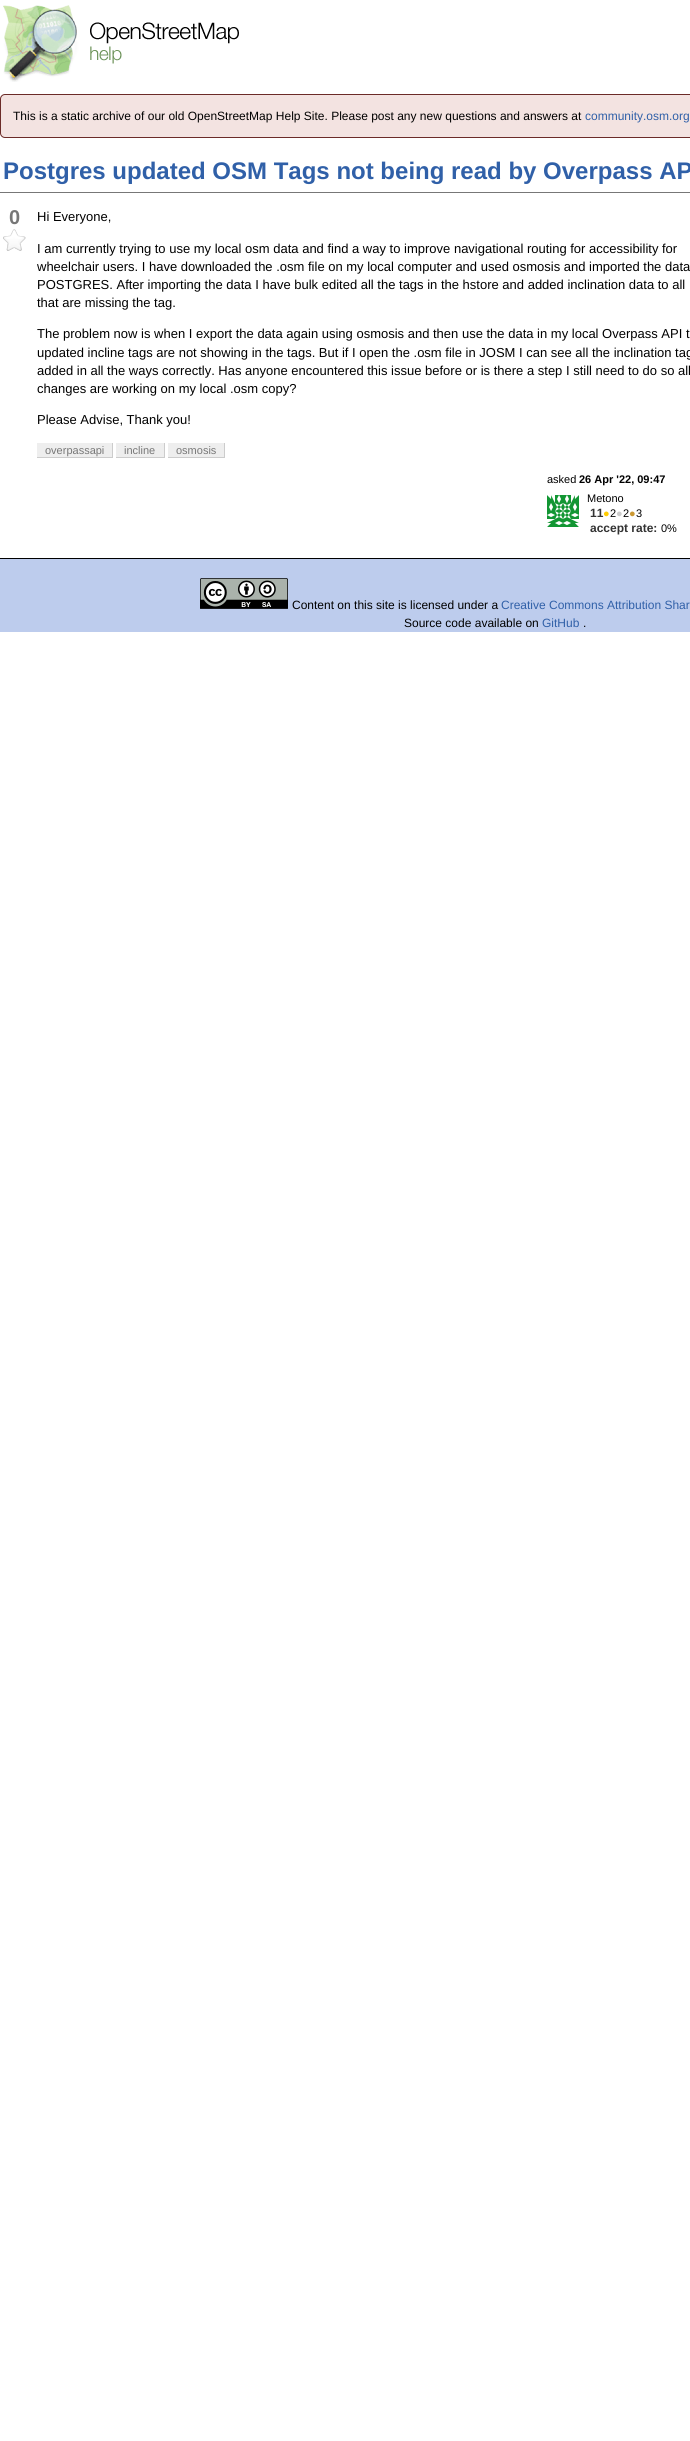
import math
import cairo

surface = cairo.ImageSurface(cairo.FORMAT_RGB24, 690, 2441)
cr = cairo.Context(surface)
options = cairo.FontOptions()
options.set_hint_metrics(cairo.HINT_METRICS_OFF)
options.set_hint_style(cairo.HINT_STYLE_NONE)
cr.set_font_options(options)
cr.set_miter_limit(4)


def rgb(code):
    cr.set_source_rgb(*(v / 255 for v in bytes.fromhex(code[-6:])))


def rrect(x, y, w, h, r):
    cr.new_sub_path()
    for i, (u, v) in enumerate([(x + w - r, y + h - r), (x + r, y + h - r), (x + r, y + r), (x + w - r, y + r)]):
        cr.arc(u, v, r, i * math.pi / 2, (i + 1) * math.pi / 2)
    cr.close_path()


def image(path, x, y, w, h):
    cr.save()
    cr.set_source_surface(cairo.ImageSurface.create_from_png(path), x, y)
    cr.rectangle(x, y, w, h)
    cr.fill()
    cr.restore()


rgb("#ffffff")
cr.paint()
image("img/1.png", 3, 5, 236, 77)
rgb("#f3e3e1")
rrect(0.5, 94.5, 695, 43, 4.5)
cr.fill_preserve()
rgb("#6b2b28")
cr.set_line_width(1)
cr.stroke()
rgb("#777777")
cr.rectangle(0, 192, 690, 1)
cr.fill()
image("img/2.png", 3, 229, 23, 22)
for x, y, w, h, color in [
    (37, 443, 75, 14, "#eeeeee"),
    (112, 443, 1, 15, "#cccccc"),
    (37, 457, 76, 1, "#cccccc"),
    (116, 443, 48, 14, "#eeeeee"),
    (164, 443, 1, 15, "#cccccc"),
    (116, 457, 49, 1, "#cccccc"),
    (168, 443, 56, 14, "#eeeeee"),
    (224, 443, 1, 15, "#cccccc"),
    (168, 457, 57, 1, "#cccccc"),
]:
    rgb(color)
    cr.rectangle(x, y, w, h)
    cr.fill()
image("img/3.png", 547, 495, 32, 32)
rgb("#bdcced")
cr.rectangle(0, 559, 690, 73)
cr.fill()
rgb("#000000")
cr.rectangle(0, 558, 690, 1)
cr.fill()
image("img/4.png", 200, 578, 88, 31)
cr.select_font_face("Liberation Sans")
cr.set_font_size(12)
cr.move_to(13, 120)
cr.show_text("This is a static archive of our old OpenStreetMap Help Site. Please post any new questions and answers at")
rgb("#3060a8")
cr.move_to(585, 120)
cr.show_text("community.osm.org")
cr.select_font_face("Liberation Sans", cairo.FONT_SLANT_NORMAL, cairo.FONT_WEIGHT_BOLD)
cr.set_font_size(24)
cr.move_to(3, 179)
cr.show_text("Postgres updated OSM Tags not being read by Overpass AP")
cr.set_font_size(20)
rgb("#777777")
cr.move_to(9, 224)
cr.show_text("0")
cr.select_font_face("Liberation Sans")
cr.set_font_size(13)
rgb("#000000")
for x, y, s in [
    (37, 221, "Hi Everyone,"),
    (37, 253, "I am currently trying to use my local osm data and find a way to improve navigational routing for accessibility for"),
    (37, 271, "wheelchair users. I have downloaded the .osm file on my local computer and used osmosis and imported the data"),
    (37, 289, "POSTGRES. After importing the data I have bulk edited all the tags in the hstore and added inclination data to all"),
    (37, 307, "that are missing the tag."),
    (37, 338, "The problem now is when I export the data again using osmosis and then use the data in my local Overpass API t"),
    (37, 357, "updated incline tags are not showing in the tags. But if I open the .osm file in JOSM I can see all the inclination tag"),
    (37, 375, "added in all the ways correctly. Has anyone encountered this issue before or is there a step I still need to do so all"),
    (37, 393, "changes are working on my local .osm copy?"),
    (37, 424, "Please Advise, Thank you!"),
]:
    cr.move_to(x, y)
    cr.show_text(s)
cr.set_font_size(11)
rgb("#777777")
for x, y, s in [
    (45, 454, "overpassapi"),
    (124, 454, "incline"),
    (176, 454, "osmosis"),
]:
    cr.move_to(x, y)
    cr.show_text(s)
rgb("#000000")
cr.move_to(547, 483)
cr.show_text("asked")
cr.select_font_face("Liberation Sans", cairo.FONT_SLANT_NORMAL, cairo.FONT_WEIGHT_BOLD)
cr.move_to(579, 483)
cr.show_text("26 Apr '22, 09:47")
cr.select_font_face("Liberation Sans")
cr.move_to(587, 502)
cr.show_text("Metono")
cr.select_font_face("Liberation Sans", cairo.FONT_SLANT_NORMAL, cairo.FONT_WEIGHT_BOLD)
cr.set_font_size(12)
rgb("#333333")
cr.move_to(590, 517)
cr.show_text("11")
cr.select_font_face("Liberation Sans")
cr.set_font_size(11)
rgb("#ffcc00")
cr.move_to(603, 517)
cr.show_text("●")
rgb("#000000")
cr.move_to(610, 517)
cr.show_text("2")
rgb("#cccccc")
cr.move_to(616, 517)
cr.show_text("●")
rgb("#000000")
cr.move_to(623, 517)
cr.show_text("2")
rgb("#cc9933")
cr.move_to(629, 517)
cr.show_text("●")
rgb("#000000")
cr.move_to(636, 517)
cr.show_text("3")
cr.select_font_face("Liberation Sans", cairo.FONT_SLANT_NORMAL, cairo.FONT_WEIGHT_BOLD)
cr.set_font_size(12)
rgb("#333333")
cr.move_to(590, 532)
cr.show_text("accept rate:")
cr.select_font_face("Liberation Sans")
cr.set_font_size(11)
rgb("#000000")
cr.move_to(661, 532)
cr.show_text("0%")
cr.set_font_size(12)
cr.move_to(292, 609)
cr.show_text("Content on this site is licensed under a")
rgb("#3060a8")
cr.move_to(501, 609)
cr.show_text("Creative Commons Attribution Shar")
rgb("#000000")
cr.move_to(404, 627)
cr.show_text("Source code available on")
rgb("#3060a8")
cr.move_to(542, 627)
cr.show_text("GitHub")
rgb("#000000")
cr.move_to(583, 627)
cr.show_text(".")
surface.write_to_png("page.png")
